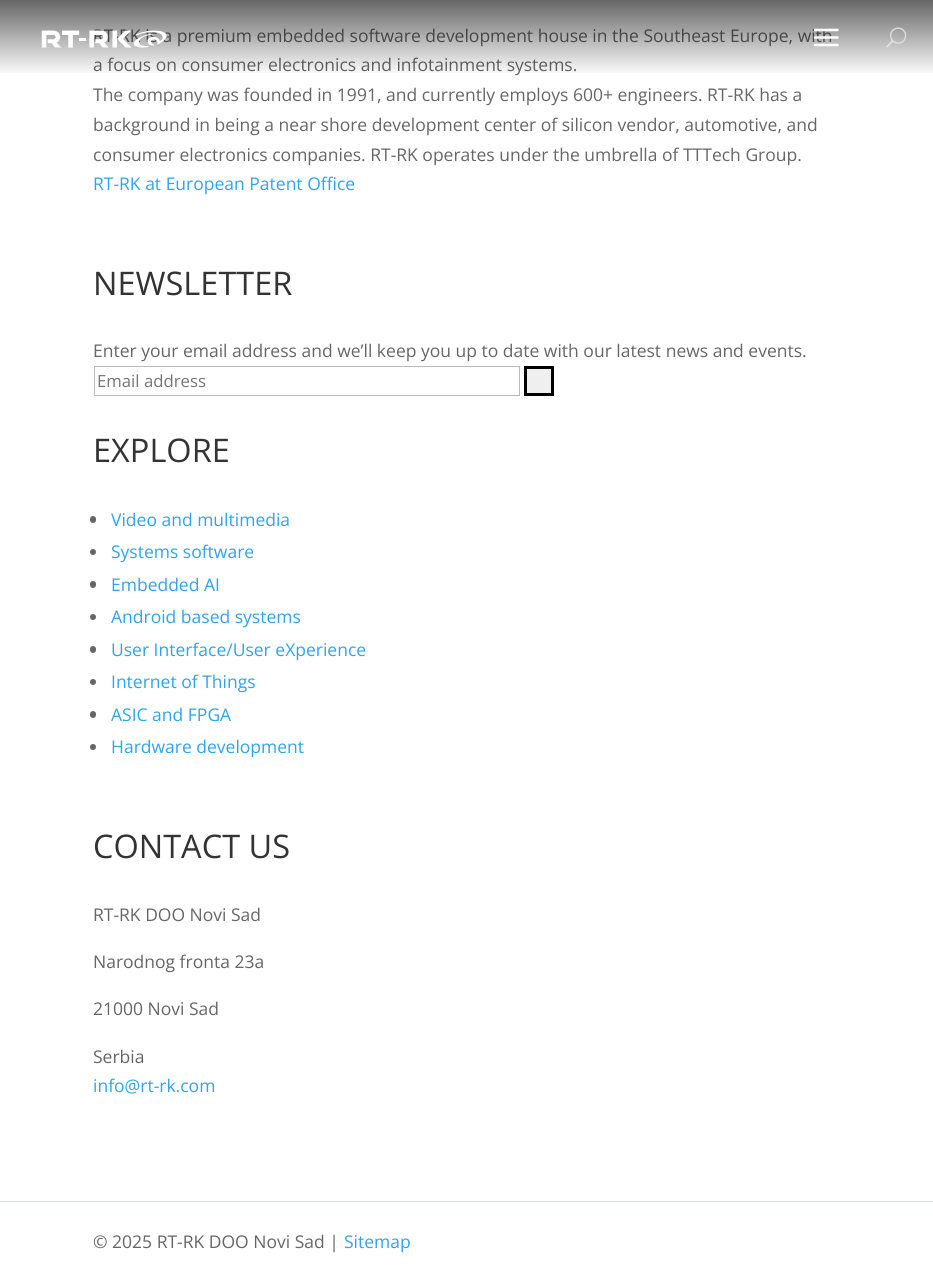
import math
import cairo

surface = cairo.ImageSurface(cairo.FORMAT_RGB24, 933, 1273)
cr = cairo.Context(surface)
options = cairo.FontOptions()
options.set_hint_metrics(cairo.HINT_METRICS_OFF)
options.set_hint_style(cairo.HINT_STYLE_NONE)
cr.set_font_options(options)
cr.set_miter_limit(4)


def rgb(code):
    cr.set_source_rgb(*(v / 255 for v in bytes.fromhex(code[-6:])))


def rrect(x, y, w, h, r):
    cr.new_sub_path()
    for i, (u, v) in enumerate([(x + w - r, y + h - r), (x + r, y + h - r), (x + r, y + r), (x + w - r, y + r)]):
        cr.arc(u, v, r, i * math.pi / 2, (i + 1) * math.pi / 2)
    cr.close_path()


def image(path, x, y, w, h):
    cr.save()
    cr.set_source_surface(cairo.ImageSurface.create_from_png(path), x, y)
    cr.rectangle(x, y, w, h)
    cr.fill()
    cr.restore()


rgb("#ffffff")
cr.paint()
cr.rectangle(94.5, 366.5, 425, 29)
rgb("#bbbbbb")
cr.set_line_width(1)
cr.stroke()
rgb("#efefef")
cr.rectangle(525.5, 367.5, 27, 27)
cr.fill_preserve()
rgb("#000000")
cr.set_line_width(3)
cr.stroke()
rgb("#666666")
rrect(90, 516, 6, 7, 3)
cr.fill()
cr.arc(93, 552, 3, 0, 2 * math.pi)
cr.fill()
rrect(90, 581, 6, 7, 3)
cr.fill()
cr.arc(93, 617, 3, 0, 2 * math.pi)
cr.fill()
rrect(90, 646, 6, 7, 3)
cr.fill()
cr.arc(93, 682, 3, 0, 2 * math.pi)
cr.fill()
rrect(90, 711, 6, 7, 3)
cr.fill()
cr.arc(93, 747, 3, 0, 2 * math.pi)
cr.fill()
rgb("#dde2e8")
cr.rectangle(0, 1201, 933, 1)
cr.fill()
cr.select_font_face("Open Sans")
cr.set_font_size(17.5)
rgb("#666666")
cr.move_to(93, 42)
cr.show_text("RT-RK is a premium embedded software development house in the Southeast Europe, with")
cr.move_to(93, 71)
cr.show_text("a focus on consumer electronics and infotainment systems.")
gradient = cairo.LinearGradient(467, 0, 467, 76)
gradient.add_color_stop_rgba(0, 0, 0, 0, 0.6)
gradient.add_color_stop_rgba(1, 0, 0, 0, 0)
cr.set_source(gradient)
cr.rectangle(0, 0, 933, 73)
cr.fill()
image("img/2.png", 813, 28, 26, 19)
image("img/3.png", 886, 27, 21, 21)
image("img/1.png", 41, 30, 126, 18)
rgb("#666666")
for x, y, s in [
    (93, 101, "The company was founded in 1991, and currently employs 600+ engineers. RT-RK has a"),
    (93, 131, "background in being a near shore development center of silicon vendor, automotive, and"),
    (93, 161, "consumer electronics companies. RT-RK operates under the umbrella of TTTech Group."),
]:
    cr.move_to(x, y)
    cr.show_text(s)
rgb("#2ea3f2")
cr.move_to(93, 190)
cr.show_text("RT-RK at European Patent Office")
cr.set_font_size(32.5)
rgb("#333333")
cr.move_to(93, 295)
cr.show_text("NEWSLETTER")
cr.set_font_size(17.5)
rgb("#666666")
cr.move_to(93, 357)
cr.show_text("Enter your email address and we’ll keep you up to date with our latest news and events.")
cr.set_font_size(16.75)
rgb("#757575")
cr.move_to(97, 387)
cr.show_text("Email address")
cr.set_font_size(32.5)
rgb("#333333")
cr.move_to(93, 462)
cr.show_text("EXPLORE")
cr.set_font_size(17.5)
rgb("#2ea3f2")
for x, y, s in [
    (111, 526, "Video and multimedia"),
    (111, 558, "Systems software"),
    (111, 591, "Embedded AI"),
    (111, 623, "Android based systems"),
    (111, 656, "User Interface/User eXperience"),
    (111, 688, "Internet of Things"),
    (111, 721, "ASIC and FPGA"),
    (111, 753, "Hardware development"),
]:
    cr.move_to(x, y)
    cr.show_text(s)
cr.set_font_size(32.5)
rgb("#333333")
cr.move_to(93, 858)
cr.show_text("CONTACT US")
cr.set_font_size(17.5)
rgb("#666666")
for x, y, s in [
    (93, 921, "RT-RK DOO Novi Sad"),
    (93, 968, "Narodnog fronta 23a"),
    (93, 1015, "21000 Novi Sad"),
    (93, 1063, "Serbia"),
]:
    cr.move_to(x, y)
    cr.show_text(s)
rgb("#2ea3f2")
cr.move_to(93, 1092)
cr.show_text("info@rt-rk.com")
rgb("#666666")
cr.move_to(93, 1248)
cr.show_text("© 2025 RT-RK DOO Novi Sad |")
rgb("#2ea3f2")
cr.move_to(344, 1248)
cr.show_text("Sitemap")
surface.write_to_png("page.png")
